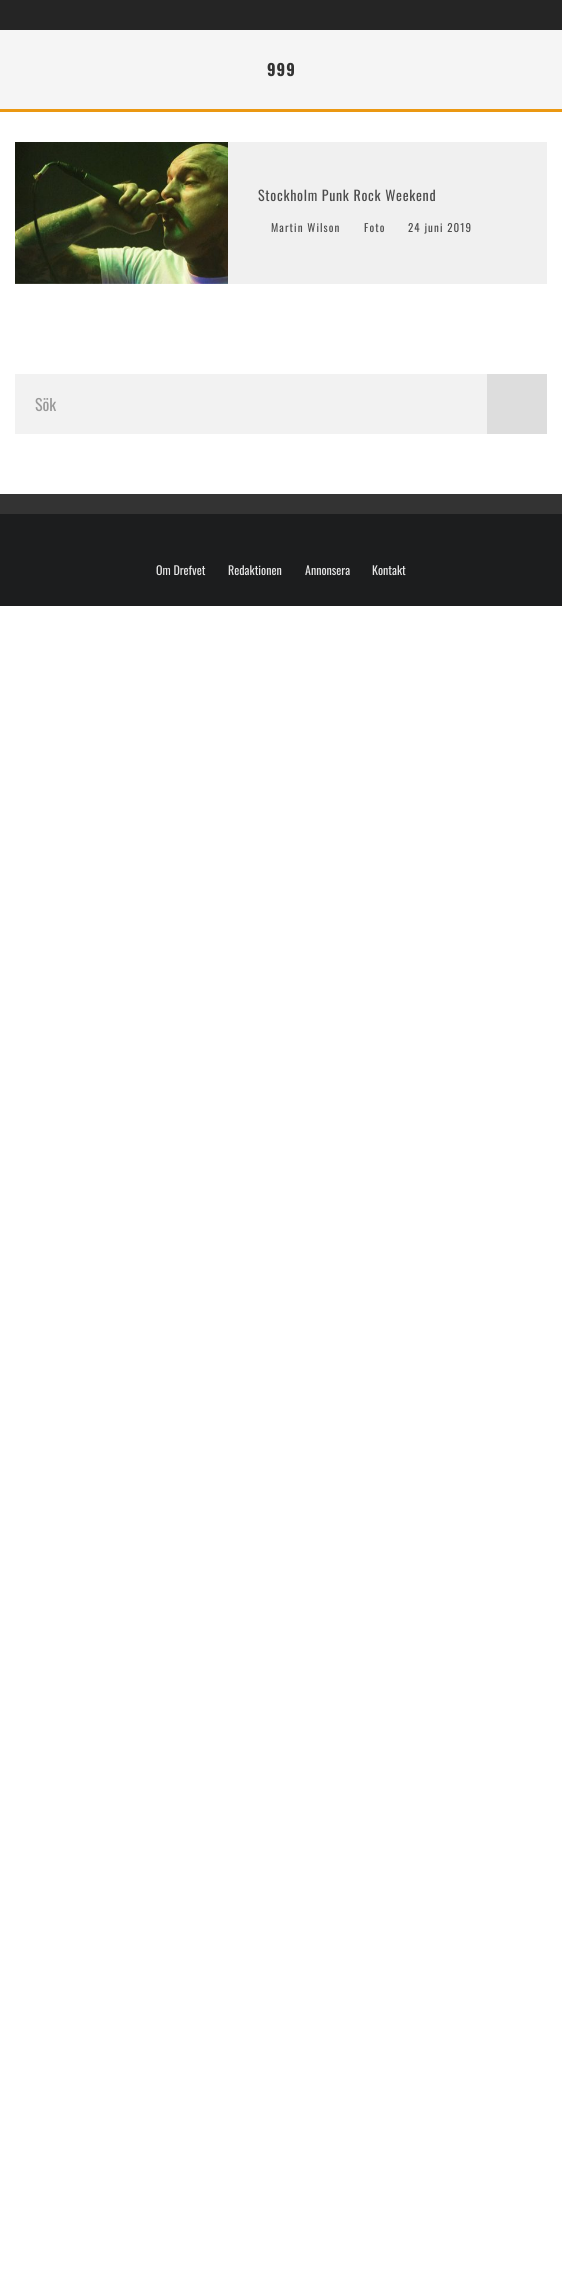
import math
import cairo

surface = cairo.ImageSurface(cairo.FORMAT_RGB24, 562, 2285)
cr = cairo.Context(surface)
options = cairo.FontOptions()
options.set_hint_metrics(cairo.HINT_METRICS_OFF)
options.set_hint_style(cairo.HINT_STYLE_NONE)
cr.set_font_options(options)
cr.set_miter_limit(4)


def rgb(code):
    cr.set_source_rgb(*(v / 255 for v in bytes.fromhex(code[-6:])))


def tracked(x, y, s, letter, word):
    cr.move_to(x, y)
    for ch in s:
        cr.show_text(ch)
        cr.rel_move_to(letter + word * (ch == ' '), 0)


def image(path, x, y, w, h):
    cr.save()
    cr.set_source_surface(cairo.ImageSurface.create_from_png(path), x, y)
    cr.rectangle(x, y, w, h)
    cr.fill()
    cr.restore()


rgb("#ffffff")
cr.paint()
for x, y, w, h, color in [
    (0, 0, 562, 30, "#252525"),
    (0, 30, 562, 79, "#f5f5f5"),
    (0, 109, 562, 3, "#eb9812"),
    (15, 142, 532, 142, "#f0f0f0"),
]:
    rgb(color)
    cr.rectangle(x, y, w, h)
    cr.fill()
image("img/1.png", 15, 142, 213, 142)
for x, y, w, h, color in [
    (15, 374, 472, 60, "#f2f2f2"),
    (487, 374, 60, 60, "#dddddd"),
    (0, 514, 562, 92, "#1c1d1e"),
    (0, 494, 562, 20, "#333333"),
]:
    rgb(color)
    cr.rectangle(x, y, w, h)
    cr.fill()
cr.select_font_face("Oswald", cairo.FONT_SLANT_NORMAL, cairo.FONT_WEIGHT_BOLD)
cr.set_font_size(16)
tracked(267, 76, "999", 1, 0)
cr.select_font_face("Oswald")
cr.set_font_size(14)
rgb("#4d4d4d")
tracked(258, 201, "Stockholm Punk Rock Weekend", 0.7, 0)
cr.set_font_size(11)
for x, y, s in [
    (271, 232, "Martin Wilson"),
    (364, 232, "Foto"),
    (408, 232, "24 juni 2019"),
]:
    tracked(x, y, s, 1.1, 0)
cr.set_font_size(16)
rgb("#999999")
cr.move_to(35, 411)
cr.show_text("Sök")
cr.set_font_size(12)
rgb("#e5e5e5")
for x, y, s in [
    (156, 575, "Om Drefvet"),
    (228, 575, "Redaktionen"),
    (305, 575, "Annonsera"),
    (372, 575, "Kontakt"),
]:
    cr.move_to(x, y)
    cr.show_text(s)
surface.write_to_png("page.png")
